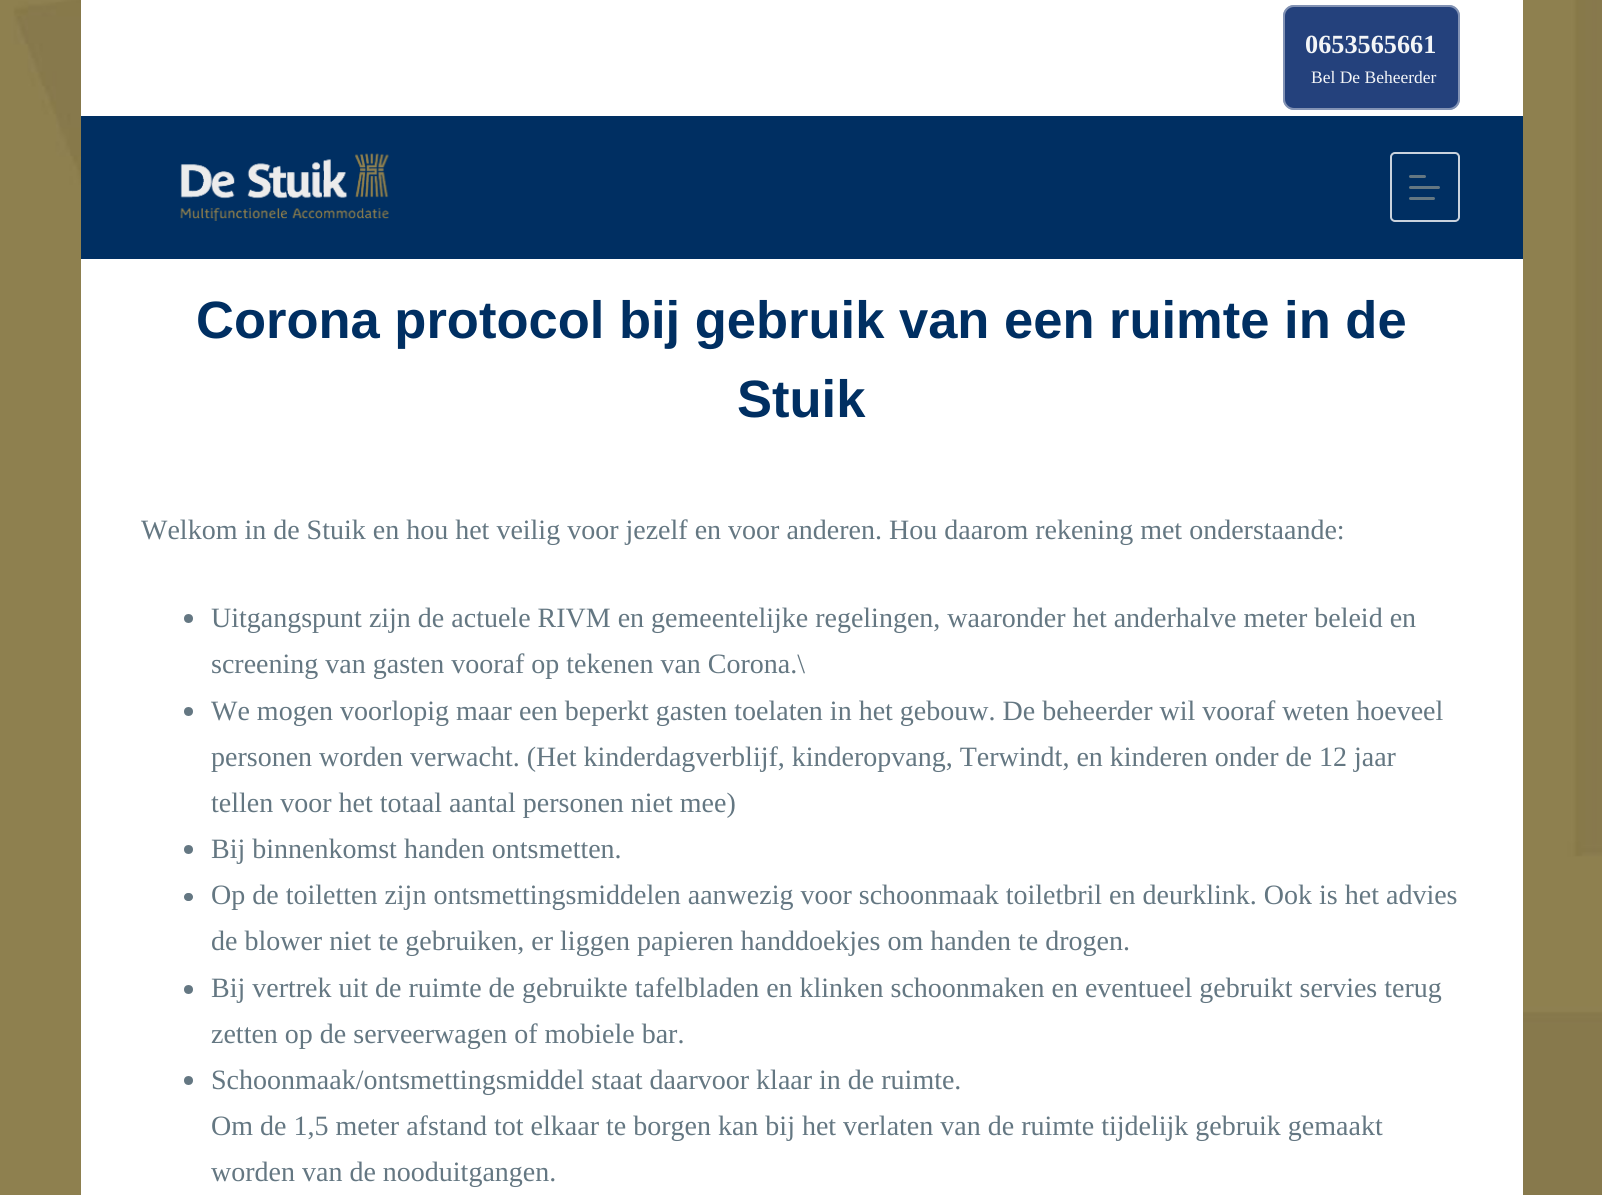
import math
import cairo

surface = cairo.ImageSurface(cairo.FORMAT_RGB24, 1602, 1195)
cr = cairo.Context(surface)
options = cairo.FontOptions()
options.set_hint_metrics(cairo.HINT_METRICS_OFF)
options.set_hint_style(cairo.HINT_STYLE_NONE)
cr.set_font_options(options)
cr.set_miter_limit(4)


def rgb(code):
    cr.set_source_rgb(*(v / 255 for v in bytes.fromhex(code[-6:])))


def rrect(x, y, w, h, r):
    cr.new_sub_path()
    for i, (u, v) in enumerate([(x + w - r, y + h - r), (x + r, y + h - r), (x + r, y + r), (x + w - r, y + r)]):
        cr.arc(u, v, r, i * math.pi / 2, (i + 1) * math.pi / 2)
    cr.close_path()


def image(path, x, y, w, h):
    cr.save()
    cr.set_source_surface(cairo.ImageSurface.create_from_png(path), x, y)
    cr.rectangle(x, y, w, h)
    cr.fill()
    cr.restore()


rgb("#ffffff")
cr.paint()
image("img/1.png", 0, 0, 1602, 1195)
rgb("#ffffff")
cr.rectangle(81, 0, 1442, 116)
cr.fill()
rgb("#24417c")
rrect(1283, 5, 177, 105, 11)
cr.fill()
rrect(1284, 6, 175, 103, 10)
cr.set_source_rgba(0.878, 0.898, 0.922, 0.5)
cr.stroke()
rgb("#002f62")
cr.rectangle(81, 116, 1442, 143)
cr.fill()
image("img/2.png", 180, 153, 209, 68)
rrect(1391, 153, 68, 68, 4)
rgb("#cad3dd")
cr.stroke()
rgb("#647782")
rrect(1409, 175, 17, 3, 1.5)
cr.fill()
rrect(1409, 186, 31, 3, 1.5)
cr.fill()
rrect(1409, 197, 26, 3, 1.5)
cr.fill()
rgb("#ffffff")
cr.rectangle(81, 259, 1442, 936)
cr.fill()
rgb("#647782")
cr.arc(188.5, 618.5, 4.5, 0, 2 * math.pi)
cr.fill()
cr.arc(188.5, 711.5, 4.5, 0, 2 * math.pi)
cr.fill()
cr.arc(188.5, 849.5, 4.5, 0, 2 * math.pi)
cr.fill()
rrect(184, 893, 9, 8, 4)
cr.fill()
cr.arc(188.5, 989.5, 4.5, 0, 2 * math.pi)
cr.fill()
cr.arc(188.5, 1080.5, 4.5, 0, 2 * math.pi)
cr.fill()
cr.select_font_face("Liberation Serif", cairo.FONT_SLANT_NORMAL, cairo.FONT_WEIGHT_BOLD)
cr.set_font_size(26.25)
rgb("#f3f5f7")
cr.move_to(1305, 53)
cr.show_text("0653565661")
cr.select_font_face("Liberation Serif")
cr.set_font_size(17.5)
cr.move_to(1311, 83)
cr.show_text("Bel De Beheerder")
cr.select_font_face("Liberation Sans", cairo.FONT_SLANT_NORMAL, cairo.FONT_WEIGHT_BOLD)
cr.set_font_size(52.5)
rgb("#002f62")
cr.move_to(196, 338)
cr.show_text("Corona protocol bij gebruik van een ruimte in de")
cr.move_to(737, 417)
cr.show_text("Stuik")
cr.select_font_face("Liberation Serif")
cr.set_font_size(28)
rgb("#647782")
for x, y, s in [
    (141, 539, "Welkom in de Stuik en hou het veilig voor jezelf en voor anderen. Hou daarom rekening met onderstaande:"),
    (211, 627, "Uitgangspunt zijn de actuele RIVM en gemeentelijke regelingen, waaronder het anderhalve meter beleid en"),
    (211, 673, "screening van gasten vooraf op tekenen van Corona.\\"),
    (211, 720, "We mogen voorlopig maar een beperkt gasten toelaten in het gebouw. De beheerder wil vooraf weten hoeveel"),
    (211, 766, "personen worden verwacht. (Het kinderdagverblijf, kinderopvang, Terwindt, en kinderen onder de 12 jaar"),
    (211, 812, "tellen voor het totaal aantal personen niet mee)"),
    (211, 858, "Bij binnenkomst handen ontsmetten."),
    (211, 904, "Op de toiletten zijn ontsmettingsmiddelen aanwezig voor schoonmaak toiletbril en deurklink. Ook is het advies"),
    (211, 950, "de blower niet te gebruiken, er liggen papieren handdoekjes om handen te drogen."),
    (211, 997, "Bij vertrek uit de ruimte de gebruikte tafelbladen en klinken schoonmaken en eventueel gebruikt servies terug"),
    (211, 1043, "zetten op de serveerwagen of mobiele bar."),
    (211, 1089, "Schoonmaak/ontsmettingsmiddel staat daarvoor klaar in de ruimte."),
    (211, 1135, "Om de 1,5 meter afstand tot elkaar te borgen kan bij het verlaten van de ruimte tijdelijk gebruik gemaakt"),
    (211, 1181, "worden van de nooduitgangen."),
]:
    cr.move_to(x, y)
    cr.show_text(s)
surface.write_to_png("page.png")
